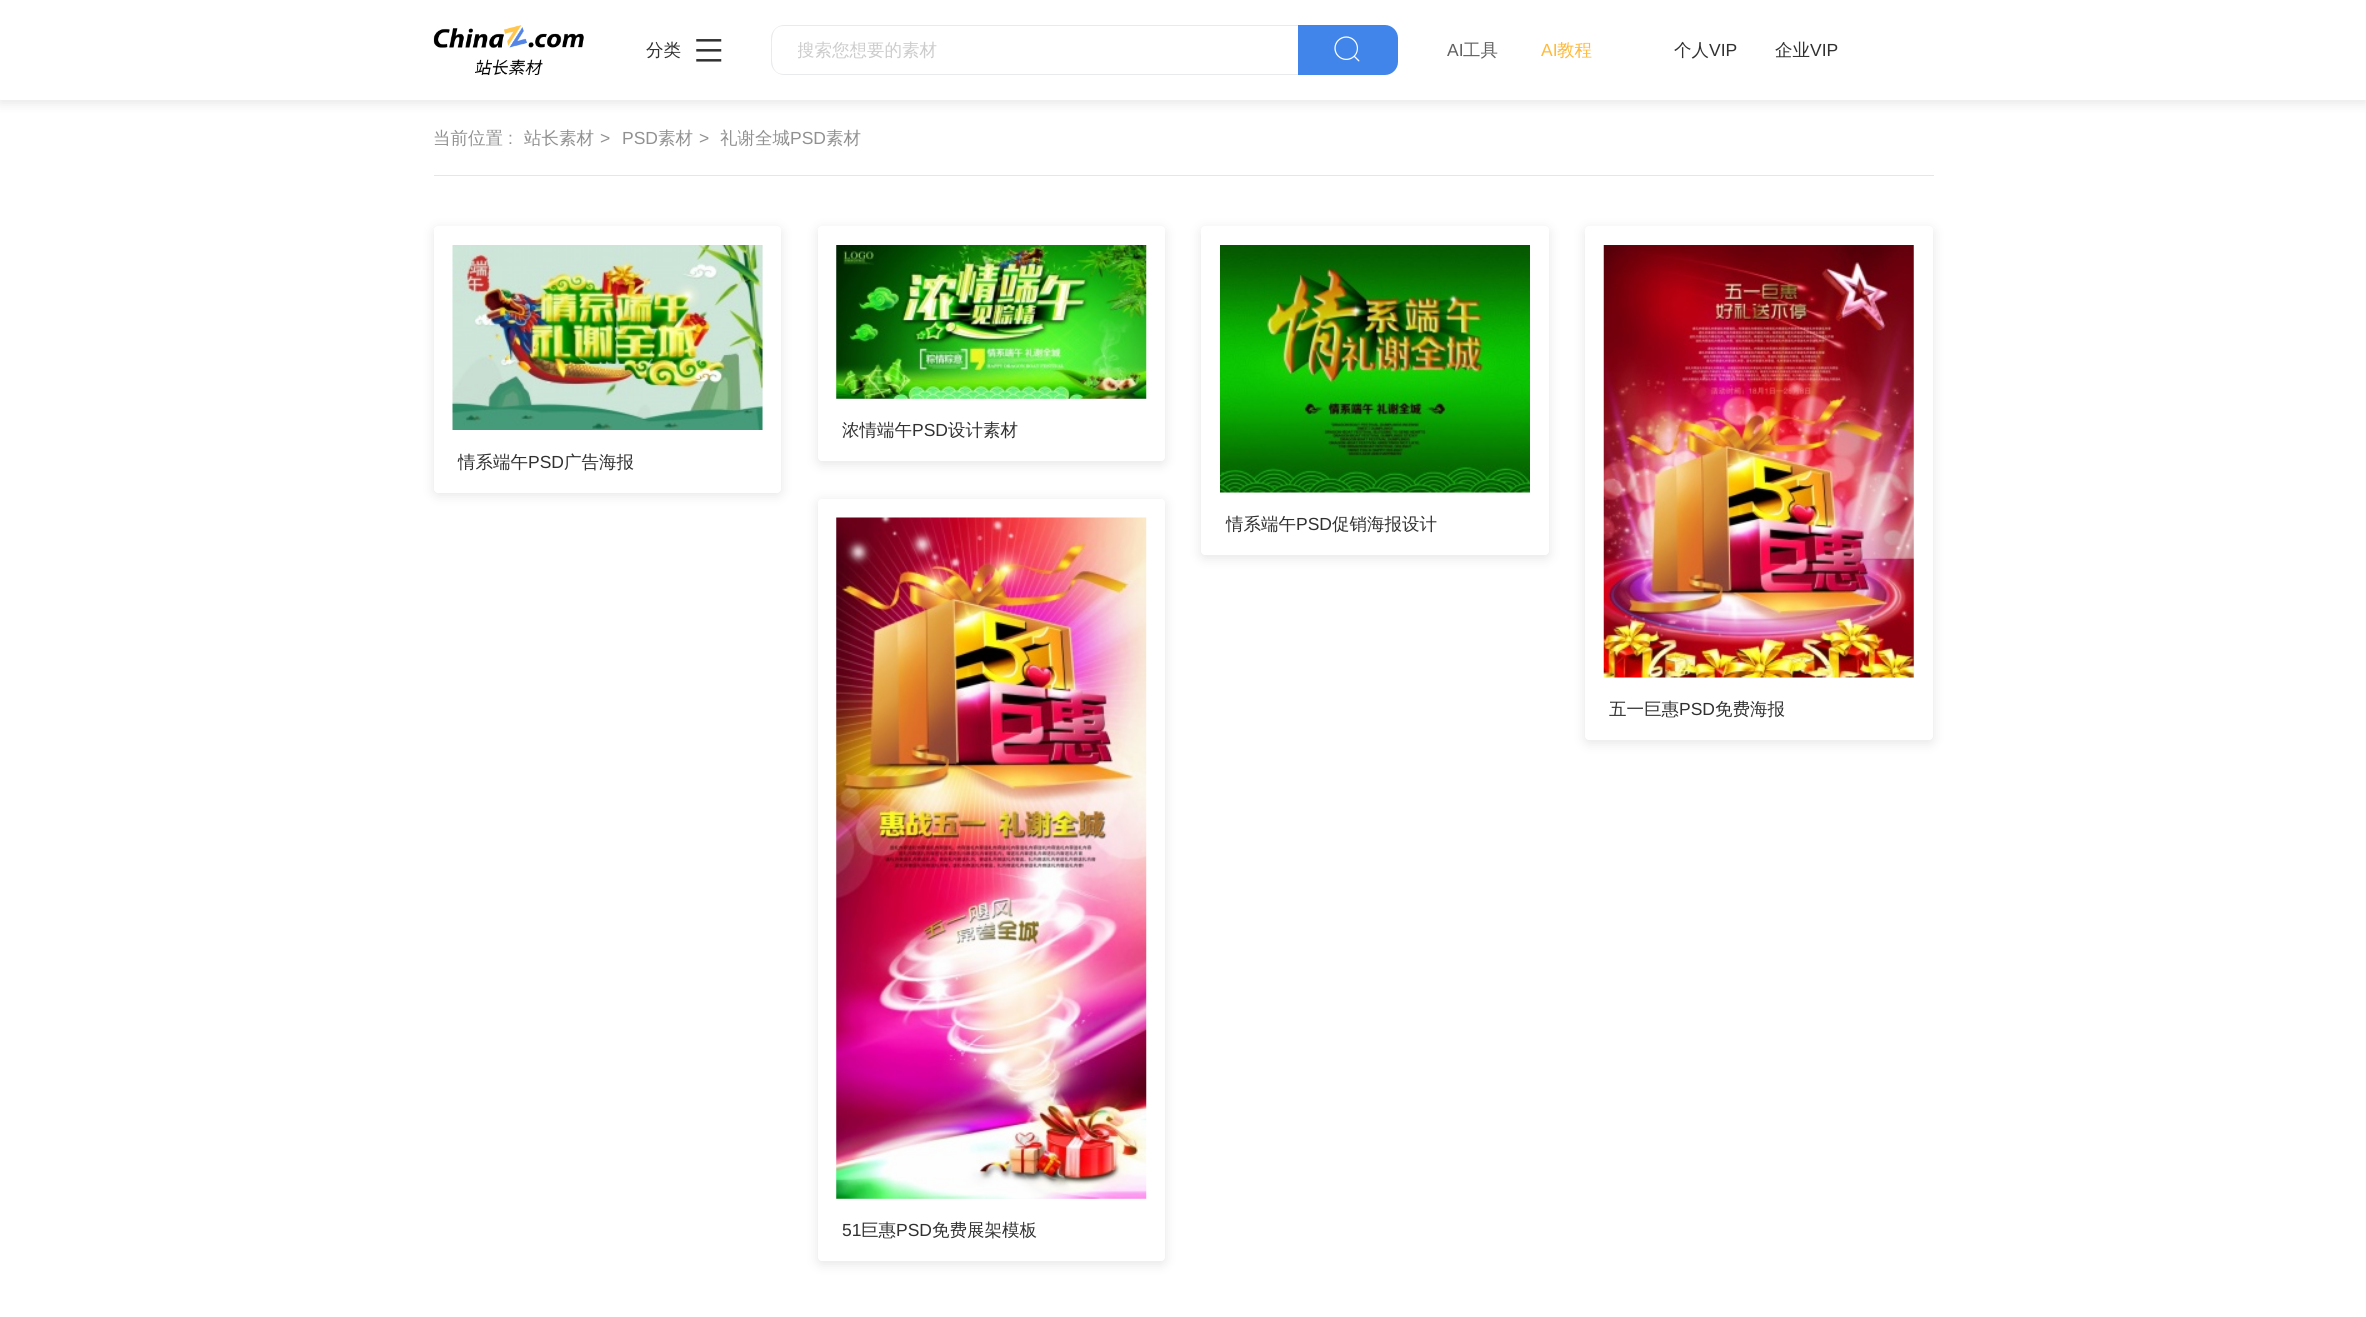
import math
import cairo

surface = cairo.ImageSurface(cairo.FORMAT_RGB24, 2366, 1317)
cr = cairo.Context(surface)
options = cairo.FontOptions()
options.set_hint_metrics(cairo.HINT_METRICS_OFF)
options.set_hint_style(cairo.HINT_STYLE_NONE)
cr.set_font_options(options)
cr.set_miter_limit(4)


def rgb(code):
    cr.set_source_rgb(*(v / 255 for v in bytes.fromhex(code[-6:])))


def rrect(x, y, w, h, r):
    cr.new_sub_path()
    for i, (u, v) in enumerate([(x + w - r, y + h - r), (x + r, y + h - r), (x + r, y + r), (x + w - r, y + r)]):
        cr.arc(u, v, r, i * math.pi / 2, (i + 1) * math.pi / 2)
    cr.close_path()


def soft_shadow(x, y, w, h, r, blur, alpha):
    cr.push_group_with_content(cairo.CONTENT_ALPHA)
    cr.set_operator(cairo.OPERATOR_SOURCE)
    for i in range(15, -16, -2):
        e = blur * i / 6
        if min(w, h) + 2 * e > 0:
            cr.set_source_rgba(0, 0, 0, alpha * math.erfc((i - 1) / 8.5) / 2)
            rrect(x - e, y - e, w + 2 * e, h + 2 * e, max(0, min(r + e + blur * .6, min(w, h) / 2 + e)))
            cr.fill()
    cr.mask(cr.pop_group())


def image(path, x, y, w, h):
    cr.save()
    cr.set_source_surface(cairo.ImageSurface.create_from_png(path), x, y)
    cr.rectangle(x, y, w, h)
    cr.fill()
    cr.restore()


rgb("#ffffff")
cr.paint()
cr.save()
cr.rectangle(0, 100, 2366, 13)
cr.clip()
rgb("#cccccc")
soft_shadow(0, 3, 2366, 100, 0, 6, 0.5)
cr.restore()
image("img/1.png", 433, 25, 151, 50)
image("img/2.png", 696, 39, 26, 23)
rgb("#e8eaec")
cr.set_fill_rule(cairo.FILL_RULE_EVEN_ODD)
cr.new_path()
cr.move_to(784, 25)
cr.line_to(1298, 25)
cr.line_to(1298, 75)
cr.line_to(784, 75)
cr.curve_to(777, 75, 771, 69, 771, 62)
cr.line_to(771, 38)
cr.curve_to(771, 31, 777, 25, 784, 25)
cr.close_path()
cr.move_to(784, 26)
cr.line_to(1298, 26)
cr.line_to(1298, 74)
cr.line_to(784, 74)
cr.curve_to(770, 74, 772, 59, 772, 50)
cr.curve_to(772, 41, 770, 26, 784, 26)
cr.close_path()
cr.fill()
rgb("#4185eb")
cr.new_path()
cr.move_to(1298, 25)
cr.line_to(1385, 25)
cr.curve_to(1392, 25, 1398, 31, 1398, 38)
cr.line_to(1398, 62)
cr.curve_to(1398, 69, 1392, 75, 1385, 75)
cr.line_to(1298, 75)
cr.close_path()
cr.fill()
image("img/3.png", 1334, 36, 26, 26)
rgb("#e5e6e5")
cr.rectangle(434, 175, 1500, 1)
cr.fill()
cr.save()
cr.new_path()
cr.move_to(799, 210)
cr.line_to(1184, 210)
cr.line_to(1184, 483)
cr.line_to(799, 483)
cr.close_path()
cr.move_to(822, 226)
cr.line_to(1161, 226)
cr.curve_to(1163, 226, 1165, 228, 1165, 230)
cr.line_to(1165, 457)
cr.curve_to(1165, 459, 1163, 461, 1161, 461)
cr.line_to(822, 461)
cr.curve_to(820, 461, 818, 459, 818, 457)
cr.line_to(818, 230)
cr.curve_to(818, 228, 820, 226, 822, 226)
cr.close_path()
cr.clip()
rgb("#cccccc")
soft_shadow(818, 229, 347, 235, 4, 6, 0.5)
cr.restore()
rgb("#f8f8fb")
cr.rectangle(836, 245, 310, 154)
cr.fill()
image("img/4.png", 836, 245, 311, 154)
cr.save()
cr.new_path()
cr.move_to(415, 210)
cr.line_to(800, 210)
cr.line_to(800, 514)
cr.line_to(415, 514)
cr.close_path()
cr.move_to(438, 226)
cr.line_to(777, 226)
cr.curve_to(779, 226, 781, 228, 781, 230)
cr.line_to(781, 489)
cr.curve_to(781, 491, 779, 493, 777, 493)
cr.line_to(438, 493)
cr.curve_to(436, 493, 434, 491, 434, 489)
cr.line_to(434, 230)
cr.curve_to(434, 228, 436, 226, 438, 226)
cr.close_path()
cr.clip()
rgb("#cccccc")
soft_shadow(434, 229, 347, 266, 4, 6, 0.5)
cr.restore()
cr.rectangle(762, 245, 1, 185)
cr.fill()
image("img/5.png", 452, 245, 311, 185)
cr.save()
cr.new_path()
cr.move_to(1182, 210)
cr.line_to(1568, 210)
cr.line_to(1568, 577)
cr.line_to(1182, 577)
cr.close_path()
cr.move_to(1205, 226)
cr.line_to(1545, 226)
cr.curve_to(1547, 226, 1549, 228, 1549, 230)
cr.line_to(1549, 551)
cr.curve_to(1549, 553, 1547, 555, 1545, 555)
cr.line_to(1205, 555)
cr.curve_to(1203, 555, 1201, 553, 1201, 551)
cr.line_to(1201, 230)
cr.curve_to(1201, 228, 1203, 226, 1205, 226)
cr.close_path()
cr.clip()
rgb("#cccccc")
soft_shadow(1201, 229, 348, 329, 4, 6, 0.5)
cr.restore()
cr.rectangle(1220, 492, 310, 1)
cr.fill()
image("img/6.png", 1220, 245, 310, 248)
cr.save()
cr.new_path()
cr.move_to(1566, 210)
cr.line_to(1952, 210)
cr.line_to(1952, 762)
cr.line_to(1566, 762)
cr.close_path()
cr.move_to(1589, 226)
cr.line_to(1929, 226)
cr.curve_to(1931, 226, 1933, 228, 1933, 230)
cr.line_to(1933, 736)
cr.curve_to(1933, 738, 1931, 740, 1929, 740)
cr.line_to(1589, 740)
cr.curve_to(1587, 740, 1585, 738, 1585, 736)
cr.line_to(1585, 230)
cr.curve_to(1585, 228, 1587, 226, 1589, 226)
cr.close_path()
cr.clip()
rgb("#cccccc")
soft_shadow(1585, 229, 348, 514, 4, 6, 0.5)
cr.restore()
cr.rectangle(1604, 245, 310, 433)
cr.fill()
image("img/7.png", 1603, 245, 311, 433)
cr.save()
cr.new_path()
cr.move_to(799, 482)
cr.line_to(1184, 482)
cr.line_to(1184, 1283)
cr.line_to(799, 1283)
cr.close_path()
cr.move_to(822, 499)
cr.line_to(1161, 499)
cr.curve_to(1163, 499, 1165, 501, 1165, 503)
cr.line_to(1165, 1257)
cr.curve_to(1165, 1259, 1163, 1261, 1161, 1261)
cr.line_to(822, 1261)
cr.curve_to(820, 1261, 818, 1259, 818, 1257)
cr.line_to(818, 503)
cr.curve_to(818, 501, 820, 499, 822, 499)
cr.close_path()
cr.clip()
rgb("#cccccc")
soft_shadow(818, 501, 347, 763, 4, 6, 0.5)
cr.restore()
cr.rectangle(836, 518, 310, 681)
cr.fill()
image("img/8.png", 836, 517, 311, 682)
cr.select_font_face("WenQuanYi Zen Hei Medium")
cr.set_font_size(17.5)
rgb("#313131")
cr.move_to(646, 56)
cr.show_text("分类")
cr.save()
cr.set_fill_rule(cairo.FILL_RULE_WINDING)
cr.rectangle(798, 40, 500, 23)
cr.clip()
rgb("#cccccc")
cr.move_to(797, 56)
cr.show_text("搜索您想要的素材")
cr.restore()
cr.select_font_face("Liberation Sans")
rgb("#616161")
cr.move_to(1447, 56)
cr.show_text("AI")
cr.select_font_face("WenQuanYi Zen Hei Medium")
cr.move_to(1463, 56)
cr.show_text("工具")
cr.select_font_face("Liberation Sans")
rgb("#feba3d")
cr.move_to(1541, 56)
cr.show_text("AI")
cr.select_font_face("WenQuanYi Zen Hei Medium")
cr.move_to(1557, 56)
cr.show_text("教程")
rgb("#313131")
cr.move_to(1674, 56)
cr.show_text("个人")
cr.select_font_face("Liberation Sans")
cr.move_to(1709, 56)
cr.show_text("VIP")
cr.select_font_face("WenQuanYi Zen Hei Medium")
cr.move_to(1775, 56)
cr.show_text("企业")
cr.select_font_face("Liberation Sans")
cr.move_to(1810, 56)
cr.show_text("VIP")
cr.select_font_face("WenQuanYi Zen Hei Medium")
rgb("#919191")
cr.move_to(433, 144)
cr.show_text("当前位置")
cr.select_font_face("Liberation Sans")
cr.move_to(508, 144)
cr.show_text(":")
cr.select_font_face("WenQuanYi Zen Hei Medium")
cr.move_to(524, 144)
cr.show_text("站长素材")
cr.select_font_face("Liberation Sans")
cr.move_to(600, 144)
cr.show_text(">")
cr.move_to(622, 144)
cr.show_text("PSD")
cr.select_font_face("WenQuanYi Zen Hei Medium")
cr.move_to(658, 144)
cr.show_text("素材")
cr.select_font_face("Liberation Sans")
cr.move_to(699, 144)
cr.show_text(">")
cr.select_font_face("WenQuanYi Zen Hei Medium")
cr.move_to(720, 144)
cr.show_text("礼谢全城")
cr.select_font_face("Liberation Sans")
cr.move_to(790, 144)
cr.show_text("PSD")
cr.select_font_face("WenQuanYi Zen Hei Medium")
cr.move_to(826, 144)
cr.show_text("素材")
rgb("#313131")
cr.move_to(842, 436)
cr.show_text("浓情端午")
cr.select_font_face("Liberation Sans")
cr.move_to(912, 436)
cr.show_text("PSD")
cr.select_font_face("WenQuanYi Zen Hei Medium")
cr.move_to(948, 436)
cr.show_text("设计素材")
cr.move_to(458, 468)
cr.show_text("情系端午")
cr.select_font_face("Liberation Sans")
cr.move_to(528, 468)
cr.show_text("PSD")
cr.select_font_face("WenQuanYi Zen Hei Medium")
cr.move_to(564, 468)
cr.show_text("广告海报")
cr.move_to(1226, 530)
cr.show_text("情系端午")
cr.select_font_face("Liberation Sans")
cr.move_to(1296, 530)
cr.show_text("PSD")
cr.select_font_face("WenQuanYi Zen Hei Medium")
cr.move_to(1332, 530)
cr.show_text("促销海报设计")
cr.move_to(1609, 715)
cr.show_text("五一巨惠")
cr.select_font_face("Liberation Sans")
cr.move_to(1679, 715)
cr.show_text("PSD")
cr.select_font_face("WenQuanYi Zen Hei Medium")
cr.move_to(1715, 715)
cr.show_text("免费海报")
cr.select_font_face("Liberation Sans")
cr.move_to(842, 1236)
cr.show_text("51")
cr.select_font_face("WenQuanYi Zen Hei Medium")
cr.move_to(861, 1236)
cr.show_text("巨惠")
cr.select_font_face("Liberation Sans")
cr.move_to(896, 1236)
cr.show_text("PSD")
cr.select_font_face("WenQuanYi Zen Hei Medium")
cr.move_to(932, 1236)
cr.show_text("免费展架模板")
surface.write_to_png("page.png")
